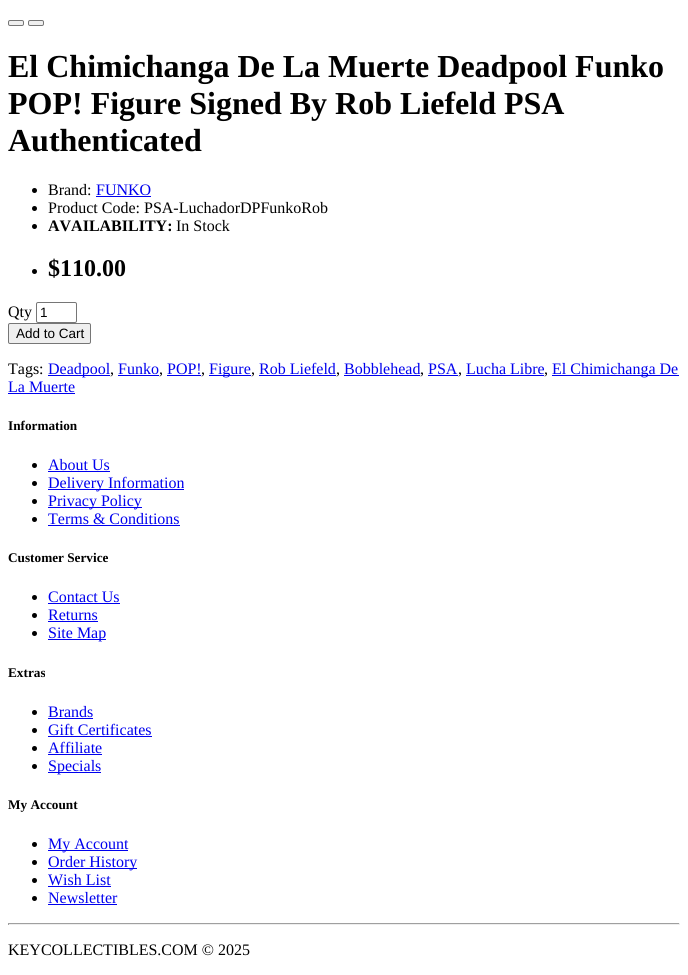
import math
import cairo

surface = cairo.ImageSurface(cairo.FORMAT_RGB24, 688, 975)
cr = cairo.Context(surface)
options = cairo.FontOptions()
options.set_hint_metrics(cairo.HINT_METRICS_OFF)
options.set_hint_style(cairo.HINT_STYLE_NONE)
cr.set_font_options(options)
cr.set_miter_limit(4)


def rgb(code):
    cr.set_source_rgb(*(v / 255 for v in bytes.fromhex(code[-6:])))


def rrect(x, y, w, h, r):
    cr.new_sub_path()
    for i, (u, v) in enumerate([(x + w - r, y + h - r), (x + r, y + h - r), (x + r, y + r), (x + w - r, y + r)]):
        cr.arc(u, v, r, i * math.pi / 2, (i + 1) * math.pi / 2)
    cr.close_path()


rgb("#ffffff")
cr.paint()
rgb("#efefef")
rrect(8.5, 20.5, 15, 5, 1.5)
cr.fill_preserve()
rgb("#767676")
cr.set_line_width(1)
cr.stroke()
rgb("#efefef")
rrect(28.5, 20.5, 15, 5, 1.5)
cr.fill_preserve()
rgb("#767676")
cr.stroke()
rgb("#000000")
cr.arc(34.5, 190.5, 2.5, 0, 2 * math.pi)
cr.fill()
rgb("#0000ee")
cr.rectangle(96, 196, 55, 1)
cr.fill()
rgb("#000000")
cr.arc(34.5, 208.5, 2.5, 0, 2 * math.pi)
cr.fill()
cr.arc(34.5, 226.5, 2.5, 0, 2 * math.pi)
cr.fill()
cr.arc(34.5, 271.5, 2.5, 0, 2 * math.pi)
cr.fill()
rrect(36.5, 302.5, 40, 20, 1.5)
rgb("#767676")
cr.stroke()
rgb("#efefef")
rrect(8.5, 323.5, 82, 20, 1.5)
cr.fill_preserve()
rgb("#767676")
cr.stroke()
for x, y, w, h, color in [
    (48, 375, 62, 1, "#0000ee"),
    (118, 375, 41, 1, "#0000ee"),
    (167, 375, 34, 1, "#0000ee"),
    (209, 375, 42, 1, "#0000ee"),
    (259, 375, 77, 1, "#0000ee"),
    (344, 375, 76, 1, "#0000ee"),
    (428, 375, 30, 1, "#0000ee"),
    (466, 375, 78, 1, "#0000ee"),
    (552, 375, 127, 1, "#0000ee"),
    (8, 393, 67, 1, "#0000ee"),
]:
    rgb(color)
    cr.rectangle(x, y, w, h)
    cr.fill()
rgb("#000000")
cr.arc(34.5, 465.5, 2.5, 0, 2 * math.pi)
cr.fill()
rgb("#0000ee")
cr.rectangle(48, 471, 62, 1)
cr.fill()
rgb("#000000")
cr.arc(34.5, 483.5, 2.5, 0, 2 * math.pi)
cr.fill()
rgb("#0000ee")
cr.rectangle(48, 489, 136, 1)
cr.fill()
rgb("#000000")
cr.arc(34.5, 501.5, 2.5, 0, 2 * math.pi)
cr.fill()
rgb("#0000ee")
cr.rectangle(48, 507, 94, 1)
cr.fill()
rgb("#000000")
cr.arc(34.5, 519.5, 2.5, 0, 2 * math.pi)
cr.fill()
rgb("#0000ee")
cr.rectangle(48, 525, 132, 1)
cr.fill()
rgb("#000000")
cr.arc(34.5, 597.5, 2.5, 0, 2 * math.pi)
cr.fill()
rgb("#0000ee")
cr.rectangle(48, 603, 72, 1)
cr.fill()
rgb("#000000")
cr.arc(34.5, 615.5, 2.5, 0, 2 * math.pi)
cr.fill()
rgb("#0000ee")
cr.rectangle(48, 621, 50, 1)
cr.fill()
rgb("#000000")
cr.arc(34.5, 633.5, 2.5, 0, 2 * math.pi)
cr.fill()
rgb("#0000ee")
cr.rectangle(48, 639, 58, 1)
cr.fill()
rgb("#000000")
cr.arc(34.5, 712.5, 2.5, 0, 2 * math.pi)
cr.fill()
rgb("#0000ee")
cr.rectangle(48, 718, 45, 1)
cr.fill()
rgb("#000000")
cr.arc(34.5, 730.5, 2.5, 0, 2 * math.pi)
cr.fill()
rgb("#0000ee")
cr.rectangle(48, 736, 104, 1)
cr.fill()
rgb("#000000")
cr.arc(34.5, 748.5, 2.5, 0, 2 * math.pi)
cr.fill()
rgb("#0000ee")
cr.rectangle(48, 754, 54, 1)
cr.fill()
rgb("#000000")
cr.arc(34.5, 766.5, 2.5, 0, 2 * math.pi)
cr.fill()
rgb("#0000ee")
cr.rectangle(48, 772, 53, 1)
cr.fill()
rgb("#000000")
cr.arc(34.5, 844.5, 2.5, 0, 2 * math.pi)
cr.fill()
rgb("#0000ee")
cr.rectangle(48, 850, 80, 1)
cr.fill()
rgb("#000000")
cr.arc(34.5, 862.5, 2.5, 0, 2 * math.pi)
cr.fill()
rgb("#0000ee")
cr.rectangle(48, 868, 89, 1)
cr.fill()
rgb("#000000")
cr.arc(34.5, 880.5, 2.5, 0, 2 * math.pi)
cr.fill()
rgb("#0000ee")
cr.rectangle(48, 886, 63, 1)
cr.fill()
rgb("#000000")
cr.arc(34.5, 898.5, 2.5, 0, 2 * math.pi)
cr.fill()
for x, y, w, h, color in [
    (48, 904, 69, 1, "#0000ee"),
    (8, 923, 672, 1, "#9f9f9f"),
    (679, 923, 1, 2, "#eeeeee"),
    (8, 924, 672, 1, "#eeeeee"),
    (8, 923, 1, 2, "#9f9f9f"),
]:
    rgb(color)
    cr.rectangle(x, y, w, h)
    cr.fill()
cr.select_font_face("Liberation Serif", cairo.FONT_SLANT_NORMAL, cairo.FONT_WEIGHT_BOLD)
cr.set_font_size(32)
rgb("#000000")
for x, y, s in [
    (8, 77, "El Chimichanga De La Muerte Deadpool Funko"),
    (8, 114, "POP! Figure Signed By Rob Liefeld PSA"),
    (8, 151, "Authenticated"),
]:
    cr.move_to(x, y)
    cr.show_text(s)
cr.select_font_face("Liberation Serif")
cr.set_font_size(16)
cr.move_to(48, 195)
cr.show_text("Brand:")
rgb("#0000ee")
cr.move_to(96, 195)
cr.show_text("FUNKO")
rgb("#000000")
cr.move_to(48, 213)
cr.show_text("Product Code: PSA-LuchadorDPFunkoRob")
cr.select_font_face("Liberation Serif", cairo.FONT_SLANT_NORMAL, cairo.FONT_WEIGHT_BOLD)
cr.move_to(48, 231)
cr.show_text("AVAILABILITY:")
cr.select_font_face("Liberation Serif")
cr.move_to(176, 231)
cr.show_text("In Stock")
cr.select_font_face("Liberation Serif", cairo.FONT_SLANT_NORMAL, cairo.FONT_WEIGHT_BOLD)
cr.set_font_size(24)
cr.move_to(48, 276)
cr.show_text("$110.00")
cr.select_font_face("Liberation Serif")
cr.set_font_size(16)
cr.move_to(8, 317)
cr.show_text("Qty")
cr.select_font_face("Liberation Sans")
cr.set_font_size(13.5)
cr.move_to(40, 317)
cr.show_text("1")
cr.move_to(16, 338)
cr.show_text("Add to Cart")
cr.select_font_face("Liberation Serif")
cr.set_font_size(16)
cr.move_to(8, 374)
cr.show_text("Tags:")
rgb("#0000ee")
cr.move_to(48, 374)
cr.show_text("Deadpool")
rgb("#000000")
cr.move_to(110, 374)
cr.show_text(",")
rgb("#0000ee")
cr.move_to(118, 374)
cr.show_text("Funko")
rgb("#000000")
cr.move_to(159, 374)
cr.show_text(",")
rgb("#0000ee")
cr.move_to(167, 374)
cr.show_text("POP!")
rgb("#000000")
cr.move_to(201, 374)
cr.show_text(",")
rgb("#0000ee")
cr.move_to(209, 374)
cr.show_text("Figure")
rgb("#000000")
cr.move_to(251, 374)
cr.show_text(",")
rgb("#0000ee")
cr.move_to(259, 374)
cr.show_text("Rob Liefeld")
rgb("#000000")
cr.move_to(336, 374)
cr.show_text(",")
rgb("#0000ee")
cr.move_to(344, 374)
cr.show_text("Bobblehead")
rgb("#000000")
cr.move_to(420, 374)
cr.show_text(",")
rgb("#0000ee")
cr.move_to(428, 374)
cr.show_text("PSA")
rgb("#000000")
cr.move_to(458, 374)
cr.show_text(",")
rgb("#0000ee")
cr.move_to(466, 374)
cr.show_text("Lucha Libre")
rgb("#000000")
cr.move_to(544, 374)
cr.show_text(",")
rgb("#0000ee")
cr.move_to(552, 374)
cr.show_text("El Chimichanga De")
cr.move_to(8, 392)
cr.show_text("La Muerte")
cr.select_font_face("Liberation Serif", cairo.FONT_SLANT_NORMAL, cairo.FONT_WEIGHT_BOLD)
cr.set_font_size(13.25)
rgb("#000000")
cr.move_to(8, 430)
cr.show_text("Information")
cr.select_font_face("Liberation Serif")
cr.set_font_size(16)
rgb("#0000ee")
for x, y, s in [
    (48, 470, "About Us"),
    (48, 488, "Delivery Information"),
    (48, 506, "Privacy Policy"),
    (48, 524, "Terms & Conditions"),
]:
    cr.move_to(x, y)
    cr.show_text(s)
cr.select_font_face("Liberation Serif", cairo.FONT_SLANT_NORMAL, cairo.FONT_WEIGHT_BOLD)
cr.set_font_size(13.25)
rgb("#000000")
cr.move_to(8, 562)
cr.show_text("Customer Service")
cr.select_font_face("Liberation Serif")
cr.set_font_size(16)
rgb("#0000ee")
for x, y, s in [
    (48, 602, "Contact Us"),
    (48, 620, "Returns"),
    (48, 638, "Site Map"),
]:
    cr.move_to(x, y)
    cr.show_text(s)
cr.select_font_face("Liberation Serif", cairo.FONT_SLANT_NORMAL, cairo.FONT_WEIGHT_BOLD)
cr.set_font_size(13.25)
rgb("#000000")
cr.move_to(8, 677)
cr.show_text("Extras")
cr.select_font_face("Liberation Serif")
cr.set_font_size(16)
rgb("#0000ee")
for x, y, s in [
    (48, 717, "Brands"),
    (48, 735, "Gift Certificates"),
    (48, 753, "Affiliate"),
    (48, 771, "Specials"),
]:
    cr.move_to(x, y)
    cr.show_text(s)
cr.select_font_face("Liberation Serif", cairo.FONT_SLANT_NORMAL, cairo.FONT_WEIGHT_BOLD)
cr.set_font_size(13.25)
rgb("#000000")
cr.move_to(8, 809)
cr.show_text("My Account")
cr.select_font_face("Liberation Serif")
cr.set_font_size(16)
rgb("#0000ee")
for x, y, s in [
    (48, 849, "My Account"),
    (48, 867, "Order History"),
    (48, 885, "Wish List"),
    (48, 903, "Newsletter"),
]:
    cr.move_to(x, y)
    cr.show_text(s)
rgb("#000000")
cr.move_to(8, 955)
cr.show_text("KEYCOLLECTIBLES.COM © 2025")
surface.write_to_png("page.png")
